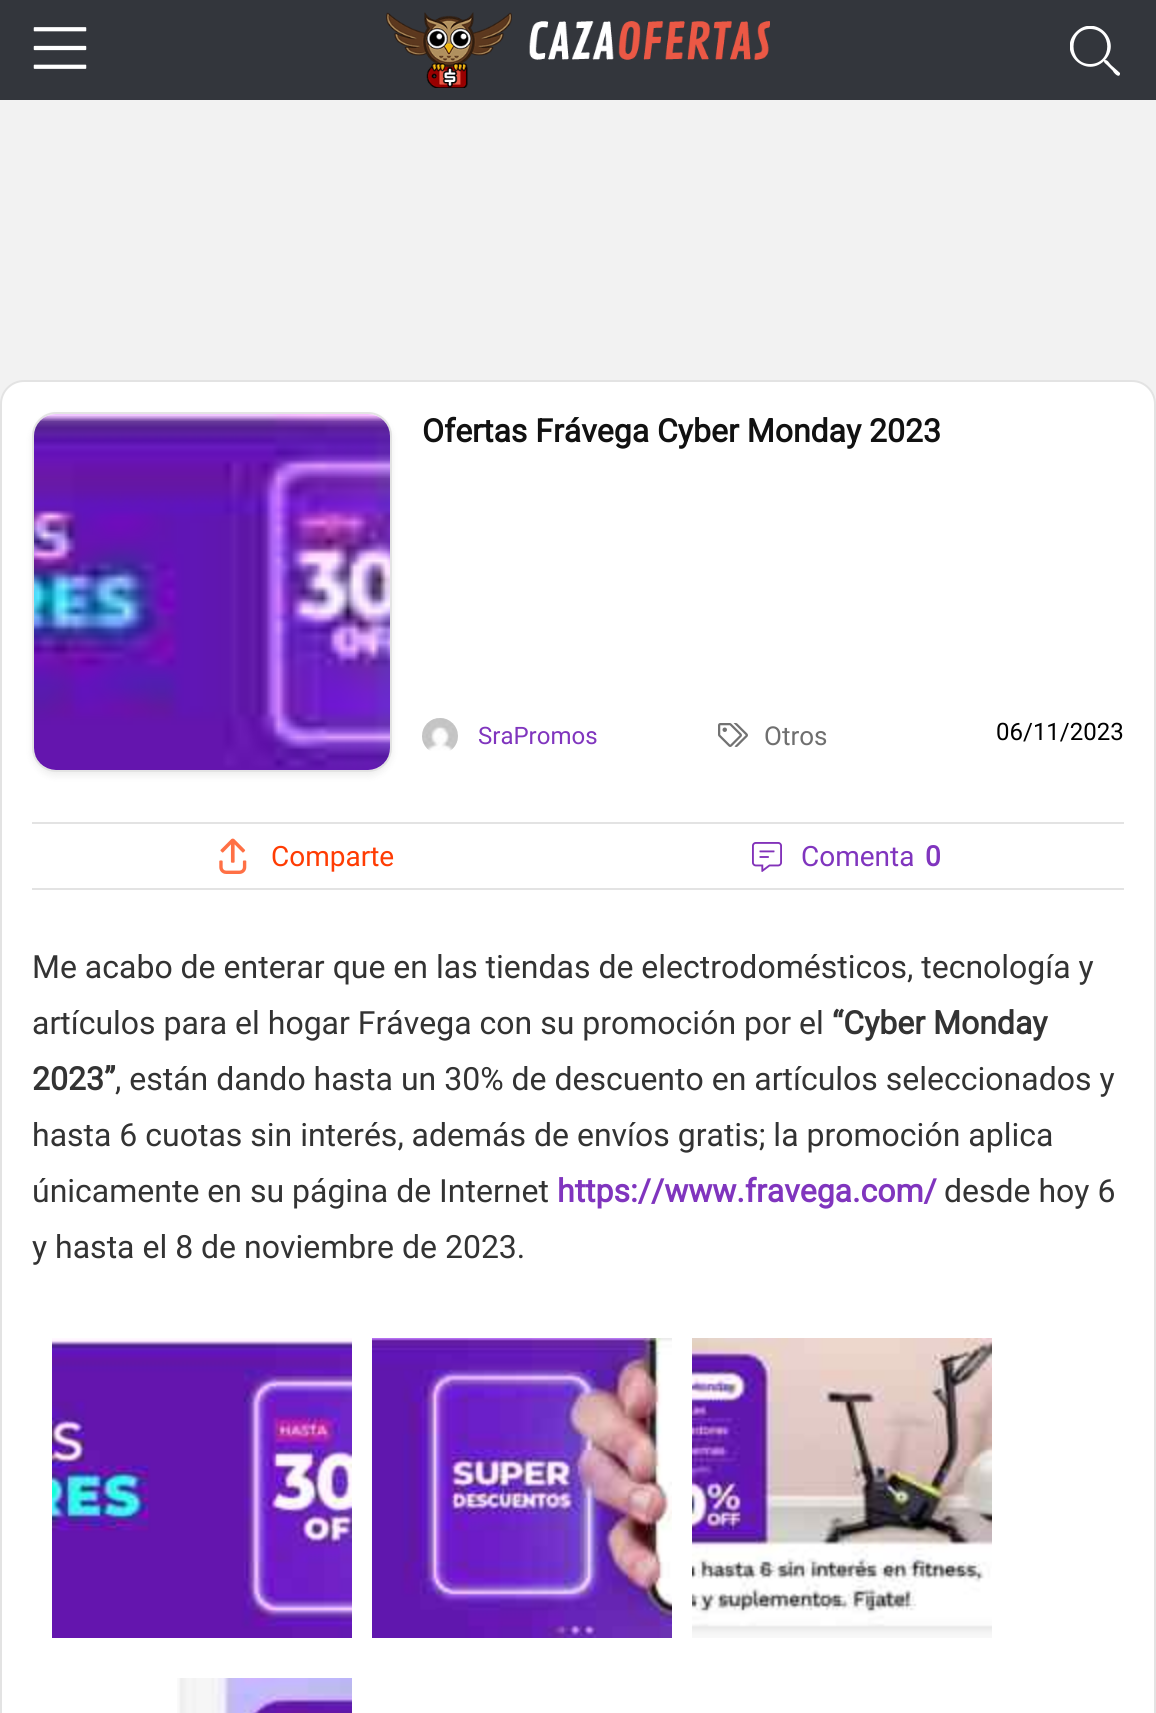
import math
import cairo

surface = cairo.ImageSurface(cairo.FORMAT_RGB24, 1156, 1713)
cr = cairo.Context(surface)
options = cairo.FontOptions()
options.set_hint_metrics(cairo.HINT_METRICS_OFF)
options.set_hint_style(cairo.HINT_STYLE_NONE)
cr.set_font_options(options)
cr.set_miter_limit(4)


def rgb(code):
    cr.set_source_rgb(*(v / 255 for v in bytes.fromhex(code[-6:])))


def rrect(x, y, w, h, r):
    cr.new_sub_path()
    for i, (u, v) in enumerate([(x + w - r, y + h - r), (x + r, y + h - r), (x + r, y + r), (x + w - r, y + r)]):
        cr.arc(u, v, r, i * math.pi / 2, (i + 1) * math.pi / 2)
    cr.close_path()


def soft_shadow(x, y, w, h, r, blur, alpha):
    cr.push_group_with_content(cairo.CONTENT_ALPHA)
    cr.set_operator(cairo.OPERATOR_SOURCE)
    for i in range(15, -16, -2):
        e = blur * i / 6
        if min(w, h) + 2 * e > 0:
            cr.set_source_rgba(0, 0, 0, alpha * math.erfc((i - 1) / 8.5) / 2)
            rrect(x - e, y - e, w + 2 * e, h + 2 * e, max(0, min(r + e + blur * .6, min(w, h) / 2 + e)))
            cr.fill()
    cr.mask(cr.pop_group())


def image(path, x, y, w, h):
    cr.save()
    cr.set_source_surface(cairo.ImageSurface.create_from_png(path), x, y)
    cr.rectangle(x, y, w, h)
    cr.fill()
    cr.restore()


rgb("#f2f2f2")
cr.paint()
rgb("#33363c")
cr.rectangle(0, 0, 1156, 100)
cr.fill()
image("img/1.png", 33, 27, 54, 42)
image("img/2.png", 386, 12, 384, 76)
cr.save()
cr.rectangle(1070, 26, 50, 50)
cr.clip()
rgb("#ffffff")
cr.new_path()
cr.move_to(1120, 73)
cr.line_to(1111, 65)
cr.curve_to(1109, 63, 1108, 60, 1105, 60)
cr.curve_to(1123, 41, 1095, 13, 1076, 32)
cr.curve_to(1057, 51, 1085, 79, 1104, 61)
cr.curve_to(1104, 63, 1105, 63, 1107, 65)
cr.line_to(1113, 71)
cr.curve_to(1113, 72, 1119, 79, 1120, 74)
cr.close_path()
cr.move_to(1090, 64)
cr.curve_to(1068, 64, 1068, 29, 1090, 29)
cr.curve_to(1113, 29, 1113, 64, 1090, 64)
cr.close_path()
cr.fill()
cr.restore()
rgb("#ffffff")
rrect(1, 381, 1154, 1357, 23)
cr.fill_preserve()
rgb("#e3e3e3")
cr.stroke()
rgb("#000000")
soft_shadow(32, 416, 360, 360, 24, 4, 0.07)
rrect(33, 413, 358, 358, 23)
rgb("#e3e3e3")
cr.stroke()
image("img/3.png", 34, 414, 356, 356)
image("img/4.png", 422, 718, 36, 33)
image("img/5.png", 718, 723, 30, 24)
cr.rectangle(32, 822, 1092, 2)
cr.fill()
cr.rectangle(32, 888, 1092, 2)
cr.fill()
image("img/6.png", 219, 838, 28, 36)
image("img/7.png", 752, 842, 30, 30)
image("img/8.png", 52, 1338, 300, 300)
image("img/9.png", 372, 1338, 300, 300)
image("img/10.png", 692, 1338, 300, 300)
image("img/11.png", 177, 1678, 175, 35)
cr.select_font_face("Roboto", cairo.FONT_SLANT_NORMAL, cairo.FONT_WEIGHT_BOLD)
cr.set_font_size(32)
rgb("#111111")
cr.move_to(422, 442)
cr.show_text("Ofertas Frávega Cyber Monday 2023")
cr.select_font_face("Roboto")
cr.set_font_size(24)
rgb("#8035be")
cr.move_to(478, 744)
cr.show_text("SraPromos")
cr.set_font_size(26)
rgb("#6f6f6f")
cr.move_to(764, 745)
cr.show_text("Otros")
cr.set_font_size(24)
rgb("#000000")
cr.move_to(996, 740)
cr.show_text("06/11/2023")
cr.set_font_size(28)
rgb("#ff3c03")
cr.move_to(271, 866)
cr.show_text("Comparte")
rgb("#8035be")
cr.move_to(801, 866)
cr.show_text("Comenta")
cr.select_font_face("Roboto", cairo.FONT_SLANT_NORMAL, cairo.FONT_WEIGHT_BOLD)
cr.move_to(925, 866)
cr.show_text("0")
cr.select_font_face("Roboto")
cr.set_font_size(32)
rgb("#333333")
cr.move_to(32, 978)
cr.show_text("Me acabo de enterar que en las tiendas de electrodomésticos, tecnología y")
cr.move_to(32, 1034)
cr.show_text("artículos para el hogar Frávega con su promoción por el")
cr.select_font_face("Roboto", cairo.FONT_SLANT_NORMAL, cairo.FONT_WEIGHT_BOLD)
cr.move_to(832, 1034)
cr.show_text("“Cyber Monday")
cr.move_to(32, 1090)
cr.show_text("2023”")
cr.select_font_face("Roboto")
for x, y, s in [
    (115, 1090, ", están dando hasta un 30% de descuento en artículos seleccionados y"),
    (32, 1146, "hasta 6 cuotas sin interés, además de envíos gratis; la promoción aplica"),
    (32, 1202, "únicamente en su página de Internet"),
]:
    cr.move_to(x, y)
    cr.show_text(s)
cr.select_font_face("Roboto", cairo.FONT_SLANT_NORMAL, cairo.FONT_WEIGHT_BOLD)
rgb("#8035be")
cr.move_to(557, 1202)
cr.show_text("https://www.fravega.com/")
cr.select_font_face("Roboto")
rgb("#333333")
cr.move_to(944, 1202)
cr.show_text("desde hoy 6")
cr.move_to(32, 1258)
cr.show_text("y hasta el 8 de noviembre de 2023.")
surface.write_to_png("page.png")
